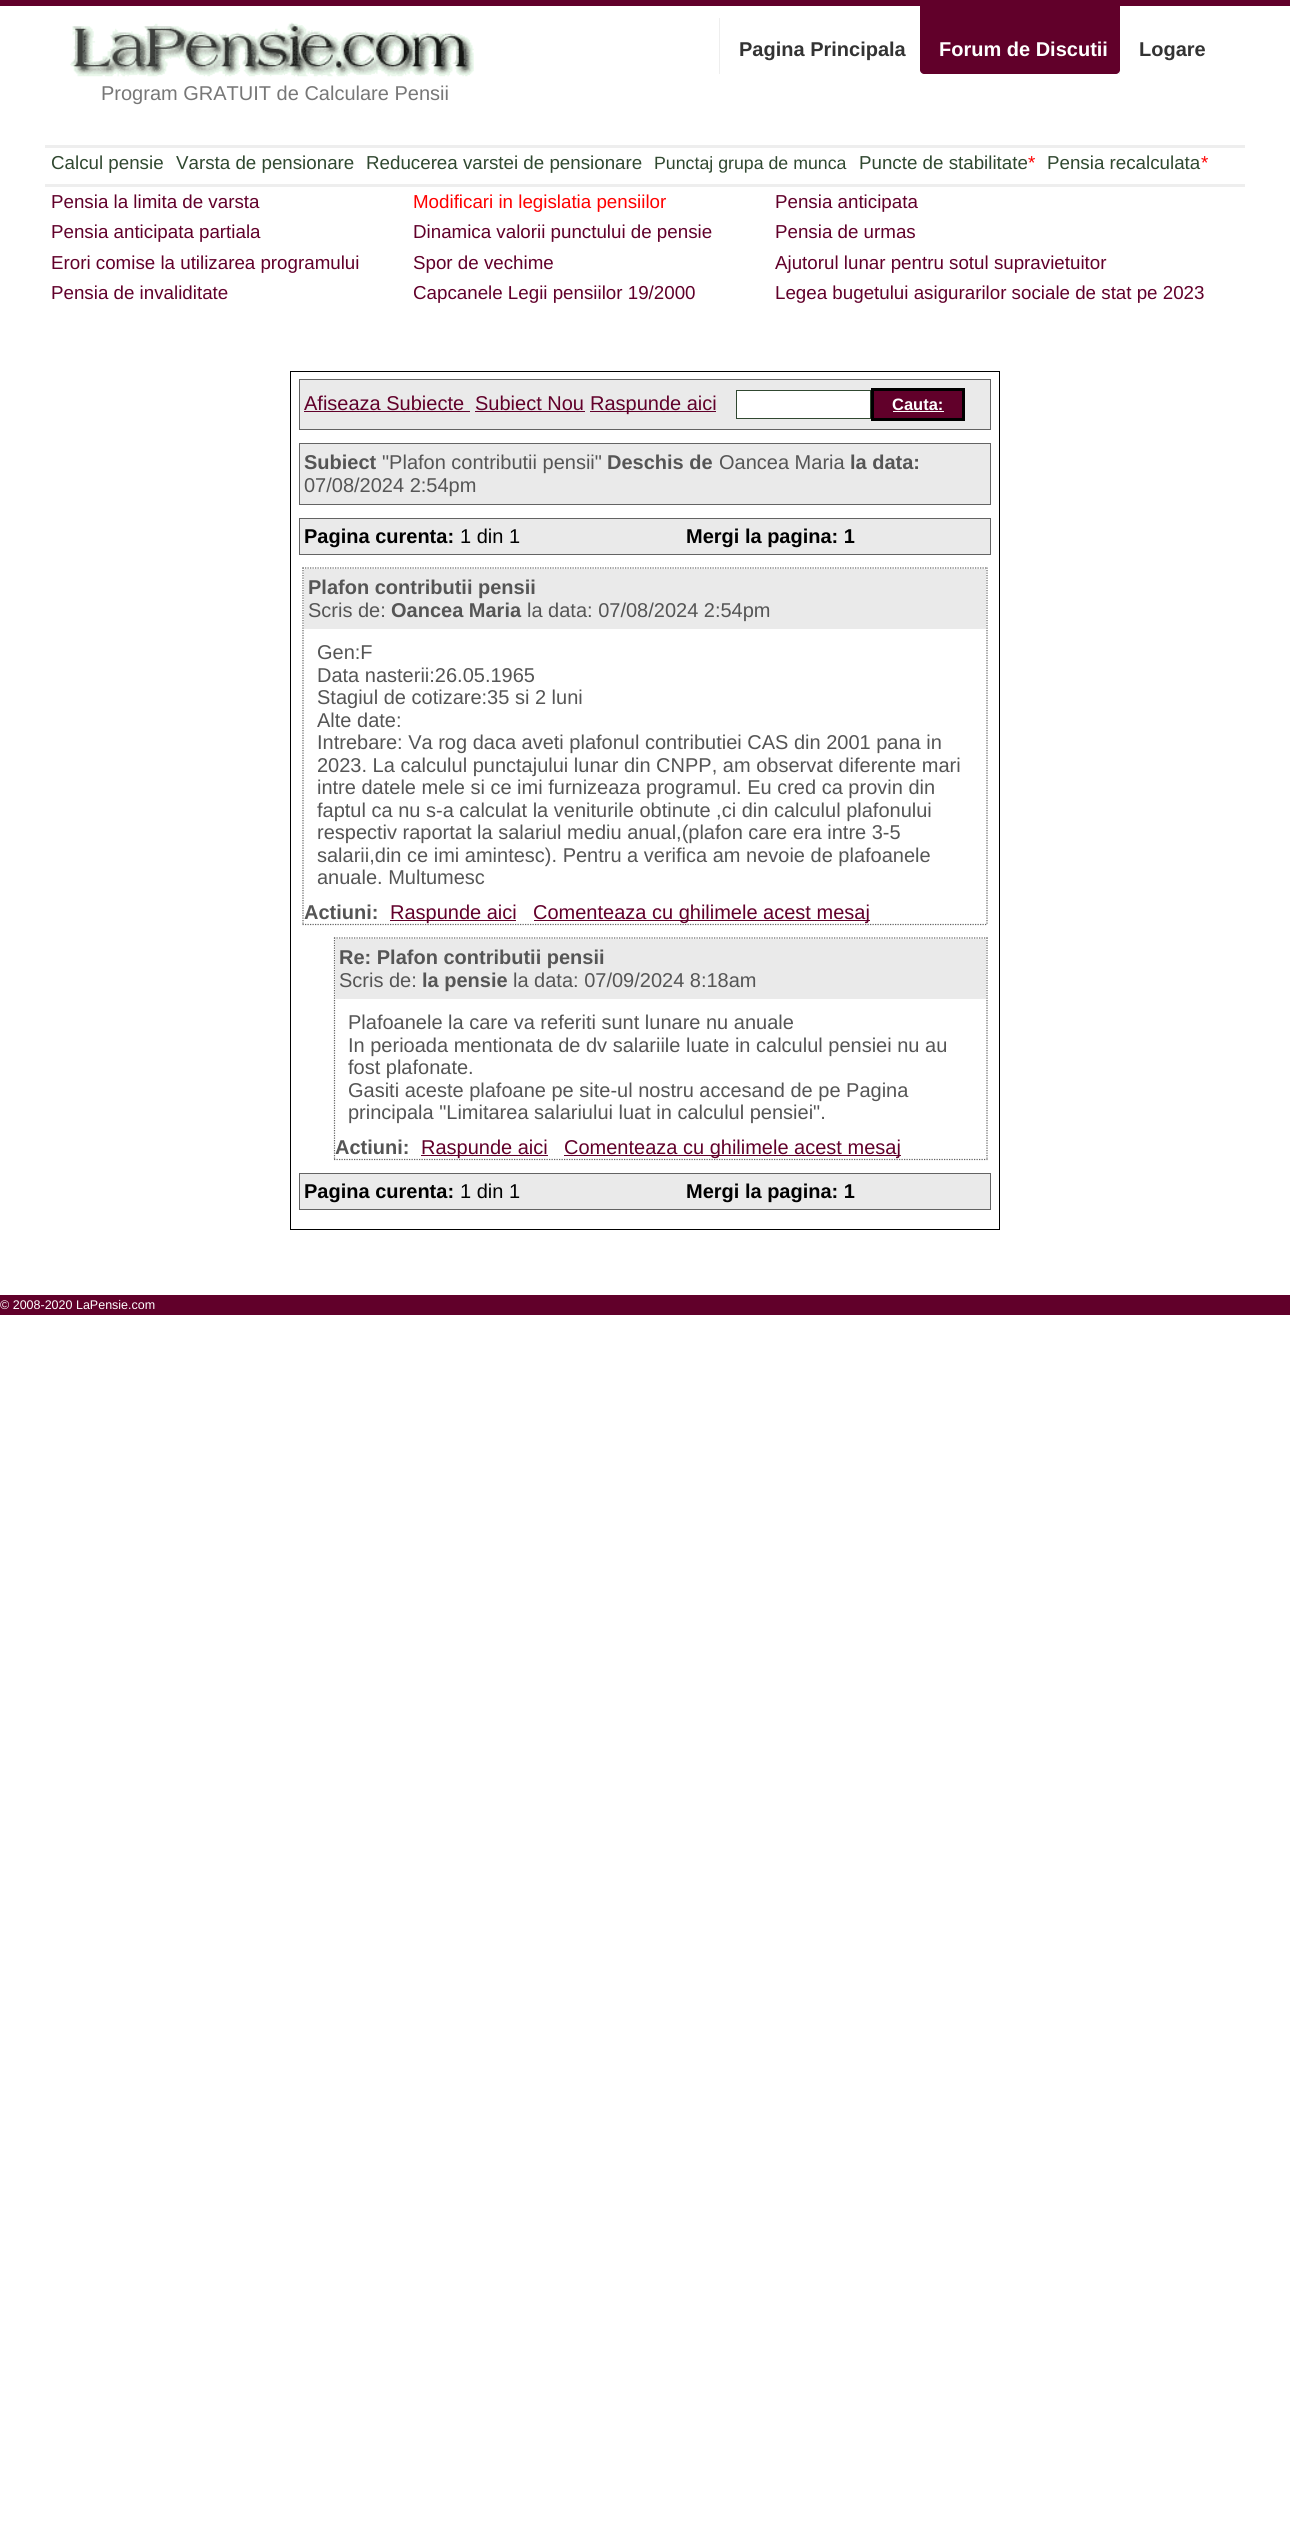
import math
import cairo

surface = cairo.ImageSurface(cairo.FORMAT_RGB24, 1290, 2526)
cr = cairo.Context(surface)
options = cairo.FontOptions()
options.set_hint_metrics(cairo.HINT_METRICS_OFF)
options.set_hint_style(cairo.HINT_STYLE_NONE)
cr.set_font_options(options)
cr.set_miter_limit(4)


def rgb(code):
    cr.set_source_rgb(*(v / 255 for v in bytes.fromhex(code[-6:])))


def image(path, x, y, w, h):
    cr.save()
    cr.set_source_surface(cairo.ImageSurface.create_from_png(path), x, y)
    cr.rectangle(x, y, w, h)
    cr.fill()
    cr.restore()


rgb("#ffffff")
cr.paint()
for x, y, w, h, color in [
    (0, 0, 1290, 6, "#61002a"),
    (719, 18, 1, 56, "#eeeeee"),
    (1119, 70, 1, 4, "#eeeeee"),
]:
    rgb(color)
    cr.rectangle(x, y, w, h)
    cr.fill()
rgb("#61002a")
cr.new_path()
cr.move_to(920, 6)
cr.line_to(1120, 6)
cr.line_to(1120, 70)
cr.curve_to(1120, 72, 1118, 74, 1116, 74)
cr.line_to(924, 74)
cr.curve_to(922, 74, 920, 72, 920, 70)
cr.close_path()
cr.fill()
image("img/1.png", 70, 22, 404, 55)
for x, y, w, h, color in [
    (45, 145, 1200, 3, "#eeeeee"),
    (45, 184, 1200, 3, "#eeeeee"),
    (290, 371, 710, 1, "#000000"),
    (999, 371, 1, 859, "#000000"),
    (290, 1229, 710, 1, "#000000"),
    (290, 371, 1, 859, "#000000"),
]:
    rgb(color)
    cr.rectangle(x, y, w, h)
    cr.fill()
rgb("#eaeaea")
cr.rectangle(299.5, 379.5, 691, 50)
cr.fill_preserve()
rgb("#636363")
cr.set_line_width(1)
cr.stroke()
for x, y, w, h, color in [
    (304, 411, 166, 1, "#61002a"),
    (475, 411, 110, 1, "#61002a"),
    (590, 411, 126, 1, "#61002a"),
]:
    rgb(color)
    cr.rectangle(x, y, w, h)
    cr.fill()
rgb("#ffffff")
cr.rectangle(736.5, 390.5, 134, 28)
cr.fill_preserve()
rgb("#304830")
cr.stroke()
rgb("#61002a")
cr.rectangle(872.5, 389.5, 91, 30)
cr.fill_preserve()
rgb("#000000")
cr.set_line_width(3)
cr.stroke()
rgb("#ffffff")
cr.rectangle(893, 411, 51, 1)
cr.fill()
rgb("#eaeaea")
cr.rectangle(299.5, 443.5, 691, 61)
cr.fill_preserve()
rgb("#636363")
cr.set_line_width(1)
cr.stroke()
rgb("#eaeaea")
cr.rectangle(299.5, 518.5, 691, 36)
cr.fill_preserve()
rgb("#636363")
cr.stroke()
cr.new_path()
cr.move_to(302.5, 568)
cr.line_to(987.5, 568)
cr.set_line_width(1.2)
cr.set_dash([1.25, 1.25])
cr.stroke()
cr.new_path()
cr.move_to(987, 567.5)
cr.line_to(987, 925)
cr.stroke()
cr.new_path()
cr.move_to(302.5, 924.5)
cr.line_to(987.5, 924.5)
cr.stroke()
cr.new_path()
cr.move_to(303, 567.5)
cr.line_to(303, 925)
cr.stroke()
for x, y, w, h, color in [
    (304, 569, 682, 60, "#eaeaea"),
    (390, 920, 126, 1, "#61002a"),
    (534, 920, 336, 1, "#61002a"),
]:
    rgb(color)
    cr.rectangle(x, y, w, h)
    cr.fill()
cr.new_path()
cr.move_to(334, 938)
cr.line_to(987.5, 938)
rgb("#636363")
cr.stroke()
cr.new_path()
cr.move_to(987, 937.5)
cr.line_to(987, 1160)
cr.stroke()
cr.new_path()
cr.move_to(334, 1159.5)
cr.line_to(987.5, 1159.5)
cr.stroke()
cr.new_path()
cr.move_to(334.5, 937.5)
cr.line_to(334.5, 1160)
cr.stroke()
for x, y, w, h, color in [
    (335, 939, 651, 60, "#eaeaea"),
    (421, 1155, 127, 1, "#61002a"),
    (564, 1155, 337, 1, "#61002a"),
]:
    rgb(color)
    cr.rectangle(x, y, w, h)
    cr.fill()
rgb("#eaeaea")
cr.rectangle(299.5, 1173.5, 691, 36)
cr.fill_preserve()
rgb("#636363")
cr.set_line_width(1)
cr.set_dash([])
cr.stroke()
rgb("#61002a")
cr.rectangle(0, 1295, 1290, 20)
cr.fill()
cr.select_font_face("Liberation Sans", cairo.FONT_SLANT_NORMAL, cairo.FONT_WEIGHT_BOLD)
cr.set_font_size(20)
rgb("#333333")
cr.move_to(739, 56)
cr.show_text("Pagina Principala")
rgb("#ffffff")
cr.move_to(939, 56)
cr.show_text("Forum de Discutii")
rgb("#333333")
cr.move_to(1139, 56)
cr.show_text("Logare")
cr.select_font_face("Liberation Sans")
rgb("#777777")
cr.move_to(101, 100)
cr.show_text("Program GRATUIT de Calculare Pensii")
cr.set_font_size(18.75)
rgb("#304830")
for x, y, s in [
    (51, 169, "Calcul pensie"),
    (176, 169, "Varsta de pensionare"),
    (366, 169, "Reducerea varstei de pensionare"),
]:
    cr.move_to(x, y)
    cr.show_text(s)
cr.set_font_size(17.75)
cr.move_to(654, 169)
cr.show_text("Punctaj grupa de munca")
cr.set_font_size(18.75)
cr.move_to(859, 169)
cr.show_text("Puncte de stabilitate")
rgb("#ff0000")
cr.move_to(1028, 169)
cr.show_text("*")
rgb("#304830")
cr.move_to(1047, 169)
cr.show_text("Pensia recalculata")
rgb("#ff0000")
cr.move_to(1201, 169)
cr.show_text("*")
rgb("#61002a")
cr.move_to(51, 208)
cr.show_text("Pensia la limita de varsta")
rgb("#ff0000")
cr.move_to(413, 208)
cr.show_text("Modificari in legislatia pensiilor")
rgb("#61002a")
for x, y, s in [
    (775, 208, "Pensia anticipata"),
    (51, 238, "Pensia anticipata partiala"),
    (413, 238, "Dinamica valorii punctului de pensie"),
    (775, 238, "Pensia de urmas"),
    (51, 269, "Erori comise la utilizarea programului"),
    (413, 269, "Spor de vechime"),
    (775, 269, "Ajutorul lunar pentru sotul supravietuitor"),
    (51, 299, "Pensia de invaliditate"),
    (413, 299, "Capcanele Legii pensiilor 19/2000"),
    (775, 299, "Legea bugetului asigurarilor sociale de stat pe 2023"),
]:
    cr.move_to(x, y)
    cr.show_text(s)
cr.set_font_size(20)
for x, y, s in [
    (304, 410, "Afiseaza Subiecte"),
    (475, 410, "Subiect Nou"),
    (590, 410, "Raspunde aici"),
]:
    cr.move_to(x, y)
    cr.show_text(s)
cr.select_font_face("Liberation Sans", cairo.FONT_SLANT_NORMAL, cairo.FONT_WEIGHT_BOLD)
cr.set_font_size(16.5)
rgb("#ffffff")
cr.move_to(892, 410)
cr.show_text("Cauta:")
cr.set_font_size(20)
rgb("#555555")
cr.move_to(304, 469)
cr.show_text("Subiect")
cr.select_font_face("Liberation Sans")
cr.move_to(382, 469)
cr.show_text("\"Plafon contributii pensii\"")
cr.select_font_face("Liberation Sans", cairo.FONT_SLANT_NORMAL, cairo.FONT_WEIGHT_BOLD)
cr.move_to(607, 469)
cr.show_text("Deschis de")
cr.select_font_face("Liberation Sans")
cr.move_to(719, 469)
cr.show_text("Oancea Maria")
cr.select_font_face("Liberation Sans", cairo.FONT_SLANT_NORMAL, cairo.FONT_WEIGHT_BOLD)
cr.move_to(850, 469)
cr.show_text("la data:")
cr.select_font_face("Liberation Sans")
cr.move_to(304, 492)
cr.show_text("07/08/2024 2:54pm")
cr.select_font_face("Liberation Sans", cairo.FONT_SLANT_NORMAL, cairo.FONT_WEIGHT_BOLD)
rgb("#000000")
cr.move_to(304, 543)
cr.show_text("Pagina curenta:")
cr.select_font_face("Liberation Sans")
cr.move_to(460, 543)
cr.show_text("1 din 1")
cr.select_font_face("Liberation Sans", cairo.FONT_SLANT_NORMAL, cairo.FONT_WEIGHT_BOLD)
cr.move_to(686, 543)
cr.show_text("Mergi la pagina: 1")
rgb("#555555")
cr.move_to(308, 594)
cr.show_text("Plafon contributii pensii")
cr.select_font_face("Liberation Sans")
cr.move_to(308, 617)
cr.show_text("Scris de:")
cr.select_font_face("Liberation Sans", cairo.FONT_SLANT_NORMAL, cairo.FONT_WEIGHT_BOLD)
cr.move_to(391, 617)
cr.show_text("Oancea Maria")
cr.select_font_face("Liberation Sans")
for x, y, s in [
    (527, 617, "la data: 07/08/2024 2:54pm"),
    (317, 659, "Gen:F"),
    (317, 682, "Data nasterii:26.05.1965"),
    (317, 704, "Stagiul de cotizare:35 si 2 luni"),
    (317, 727, "Alte date:"),
    (317, 749, "Intrebare: Va rog daca aveti plafonul contributiei CAS din 2001 pana in"),
    (317, 772, "2023. La calculul punctajului lunar din CNPP, am observat diferente mari"),
    (317, 794, "intre datele mele si ce imi furnizeaza programul. Eu cred ca provin din"),
    (317, 817, "faptul ca nu s-a calculat la veniturile obtinute ,ci din calculul plafonului"),
    (317, 839, "respectiv raportat la salariul mediu anual,(plafon care era intre 3-5"),
    (317, 862, "salarii,din ce imi amintesc). Pentru a verifica am nevoie de plafoanele"),
    (317, 884, "anuale. Multumesc"),
]:
    cr.move_to(x, y)
    cr.show_text(s)
cr.select_font_face("Liberation Sans", cairo.FONT_SLANT_NORMAL, cairo.FONT_WEIGHT_BOLD)
cr.move_to(304, 919)
cr.show_text("Actiuni:")
cr.select_font_face("Liberation Sans")
rgb("#61002a")
cr.move_to(390, 919)
cr.show_text("Raspunde aici")
cr.move_to(533, 919)
cr.show_text("Comenteaza cu ghilimele acest mesaj")
cr.select_font_face("Liberation Sans", cairo.FONT_SLANT_NORMAL, cairo.FONT_WEIGHT_BOLD)
rgb("#555555")
cr.move_to(339, 964)
cr.show_text("Re: Plafon contributii pensii")
cr.select_font_face("Liberation Sans")
cr.move_to(339, 987)
cr.show_text("Scris de:")
cr.select_font_face("Liberation Sans", cairo.FONT_SLANT_NORMAL, cairo.FONT_WEIGHT_BOLD)
cr.move_to(422, 987)
cr.show_text("la pensie")
cr.select_font_face("Liberation Sans")
for x, y, s in [
    (513, 987, "la data: 07/09/2024 8:18am"),
    (348, 1029, "Plafoanele la care va referiti sunt lunare nu anuale"),
    (348, 1052, "In perioada mentionata de dv salariile luate in calculul pensiei nu au"),
    (348, 1074, "fost plafonate."),
    (348, 1097, "Gasiti aceste plafoane pe site-ul nostru accesand de pe Pagina"),
    (348, 1119, "principala \"Limitarea salariului luat in calculul pensiei\"."),
]:
    cr.move_to(x, y)
    cr.show_text(s)
cr.select_font_face("Liberation Sans", cairo.FONT_SLANT_NORMAL, cairo.FONT_WEIGHT_BOLD)
cr.move_to(335, 1154)
cr.show_text("Actiuni:")
cr.select_font_face("Liberation Sans")
rgb("#61002a")
cr.move_to(421, 1154)
cr.show_text("Raspunde aici")
cr.move_to(564, 1154)
cr.show_text("Comenteaza cu ghilimele acest mesaj")
cr.select_font_face("Liberation Sans", cairo.FONT_SLANT_NORMAL, cairo.FONT_WEIGHT_BOLD)
rgb("#000000")
cr.move_to(304, 1198)
cr.show_text("Pagina curenta:")
cr.select_font_face("Liberation Sans")
cr.move_to(460, 1198)
cr.show_text("1 din 1")
cr.select_font_face("Liberation Sans", cairo.FONT_SLANT_NORMAL, cairo.FONT_WEIGHT_BOLD)
cr.move_to(686, 1198)
cr.show_text("Mergi la pagina: 1")
cr.select_font_face("Liberation Sans")
cr.set_font_size(12.5)
rgb("#ffffff")
cr.move_to(0, 1309)
cr.show_text("© 2008-2020 LaPensie.com")
surface.write_to_png("page.png")
